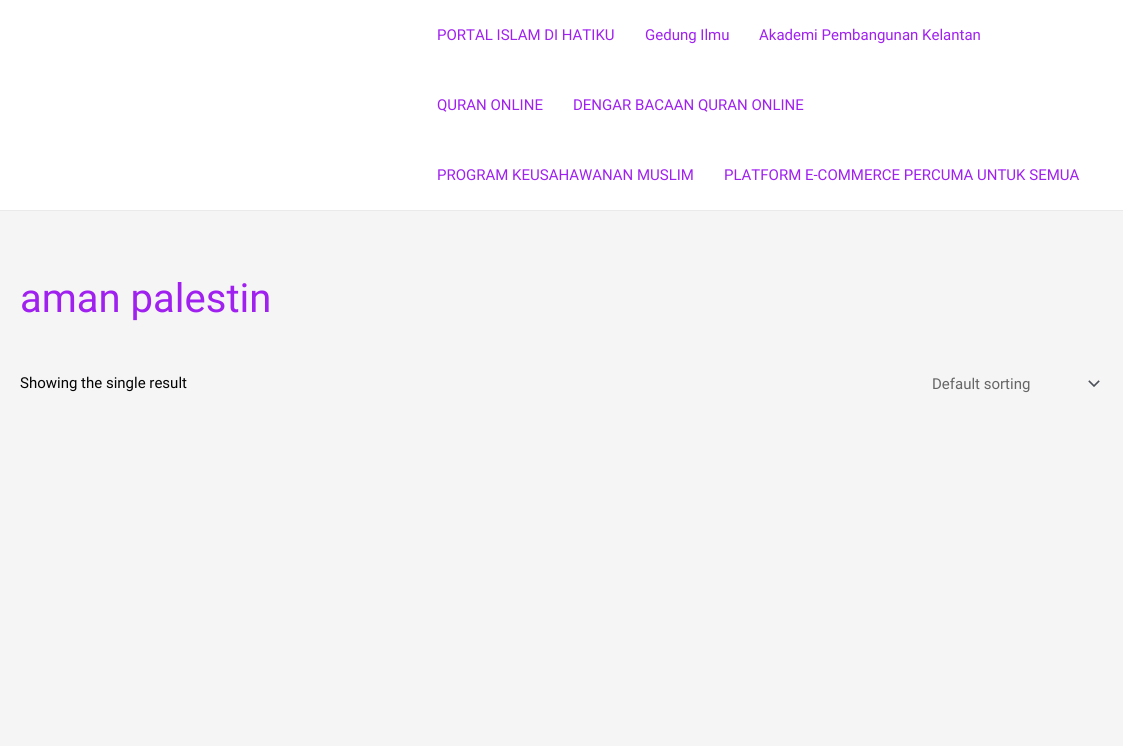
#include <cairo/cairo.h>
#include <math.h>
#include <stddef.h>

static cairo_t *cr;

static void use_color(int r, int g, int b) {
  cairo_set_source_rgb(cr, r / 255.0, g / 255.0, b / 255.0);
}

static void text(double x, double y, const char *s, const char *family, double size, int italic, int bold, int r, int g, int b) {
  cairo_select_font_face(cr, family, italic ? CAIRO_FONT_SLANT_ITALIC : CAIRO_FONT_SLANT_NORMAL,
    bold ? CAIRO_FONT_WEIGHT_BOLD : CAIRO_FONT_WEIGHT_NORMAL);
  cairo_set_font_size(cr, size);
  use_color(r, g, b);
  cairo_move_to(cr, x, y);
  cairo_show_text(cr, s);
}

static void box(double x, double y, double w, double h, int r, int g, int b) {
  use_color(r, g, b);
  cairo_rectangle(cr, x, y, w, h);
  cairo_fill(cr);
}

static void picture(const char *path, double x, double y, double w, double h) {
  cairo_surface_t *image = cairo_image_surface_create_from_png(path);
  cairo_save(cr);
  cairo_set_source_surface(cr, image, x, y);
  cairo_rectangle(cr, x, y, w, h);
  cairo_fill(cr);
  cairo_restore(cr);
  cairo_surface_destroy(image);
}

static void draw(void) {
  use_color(245, 245, 245);
  cairo_paint(cr);
  box(0, 0, 1123, 210, 255, 255, 255);
  box(0, 210, 1123, 1, 234, 234, 234);
  picture("img_01.png", 1088, 380, 12, 7);
  text(437, 40, "PORTAL ISLAM DI HATIKU", "Roboto", 15, 0, 0, 160, 32, 240);
  text(645, 40, "Gedung Ilmu", "Roboto", 15, 0, 0, 160, 32, 240);
  text(759, 40, "Akademi Pembangunan Kelantan", "Roboto", 15, 0, 0, 160, 32, 240);
  text(437, 110, "QURAN ONLINE", "Roboto", 15, 0, 0, 160, 32, 240);
  text(573, 110, "DENGAR BACAAN QURAN ONLINE", "Roboto", 15, 0, 0, 160, 32, 240);
  text(437, 180, "PROGRAM KEUSAHAWANAN MUSLIM", "Roboto", 15, 0, 0, 160, 32, 240);
  text(724, 180, "PLATFORM E-COMMERCE PERCUMA UNTUK SEMUA", "Roboto", 15, 0, 0, 160, 32, 240);
  text(20, 312, "aman palestin", "Roboto", 40, 0, 0, 160, 32, 240);
  text(20, 388, "Showing the single result", "Roboto", 15, 0, 0, 4, 4, 4);
  text(932, 389, "Default sorting", "Roboto", 15, 0, 0, 102, 102, 102);
}

int main(void) {
  cairo_surface_t *surface = cairo_image_surface_create(CAIRO_FORMAT_RGB24, 1123, 746);
  cr = cairo_create(surface);
  cairo_font_options_t *options = cairo_font_options_create();
  cairo_font_options_set_hint_metrics(options, CAIRO_HINT_METRICS_OFF);
  cairo_font_options_set_hint_style(options, CAIRO_HINT_STYLE_NONE);
  cairo_set_font_options(cr, options);
  cairo_set_miter_limit(cr, 4);
  draw();
  cairo_surface_write_to_png(surface, "out.png");
  cairo_font_options_destroy(options);
  cairo_destroy(cr);
  cairo_surface_destroy(surface);
  return 0;
}
